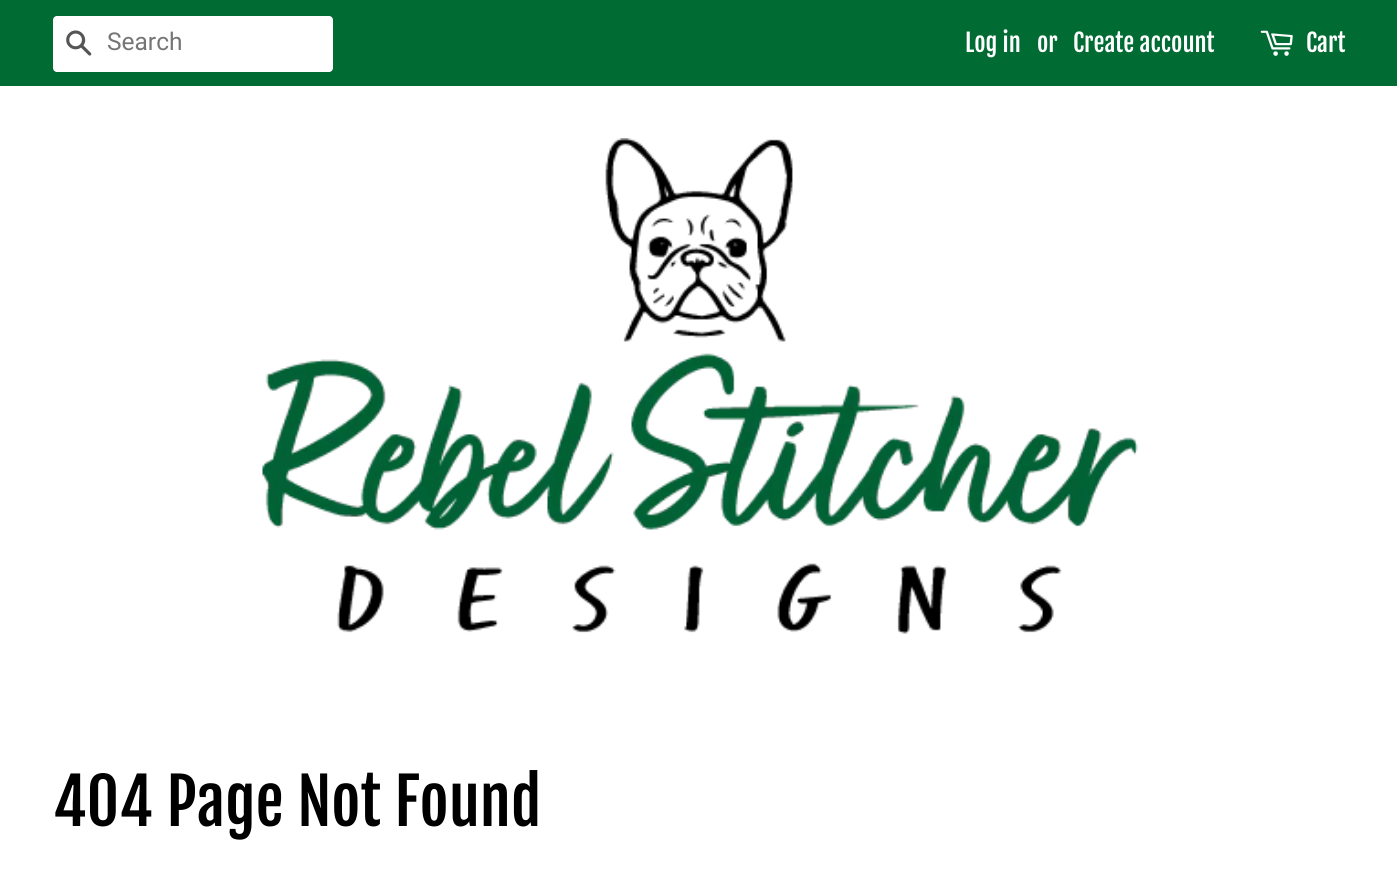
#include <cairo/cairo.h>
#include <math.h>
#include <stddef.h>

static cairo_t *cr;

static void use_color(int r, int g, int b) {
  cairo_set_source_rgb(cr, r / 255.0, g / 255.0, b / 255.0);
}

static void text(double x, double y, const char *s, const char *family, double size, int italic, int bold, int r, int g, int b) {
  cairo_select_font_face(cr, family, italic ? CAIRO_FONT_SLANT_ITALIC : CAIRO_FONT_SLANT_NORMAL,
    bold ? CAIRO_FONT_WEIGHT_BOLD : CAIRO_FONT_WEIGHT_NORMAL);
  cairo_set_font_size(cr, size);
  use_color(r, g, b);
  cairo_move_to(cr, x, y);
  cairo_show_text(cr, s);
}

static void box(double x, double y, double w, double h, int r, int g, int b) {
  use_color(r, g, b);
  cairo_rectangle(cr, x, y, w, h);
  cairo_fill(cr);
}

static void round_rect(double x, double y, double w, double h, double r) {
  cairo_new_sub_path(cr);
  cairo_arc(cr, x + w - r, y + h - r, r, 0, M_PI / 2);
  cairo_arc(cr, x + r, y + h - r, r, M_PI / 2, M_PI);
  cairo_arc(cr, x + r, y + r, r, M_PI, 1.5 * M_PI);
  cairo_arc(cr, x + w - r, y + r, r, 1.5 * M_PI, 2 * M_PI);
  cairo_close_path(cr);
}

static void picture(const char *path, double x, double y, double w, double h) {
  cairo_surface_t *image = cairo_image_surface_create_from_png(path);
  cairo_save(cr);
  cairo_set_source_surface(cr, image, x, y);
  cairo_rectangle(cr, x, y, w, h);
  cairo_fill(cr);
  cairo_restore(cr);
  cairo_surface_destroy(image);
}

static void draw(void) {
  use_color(255, 255, 255);
  cairo_paint(cr);
  box(0, 0, 1397, 86, 0, 107, 51);
  use_color(255, 255, 255);
  round_rect(53, 16, 280, 56, 4);
  cairo_fill(cr);
  picture("img_01.png", 66, 30, 26, 26);
  picture("img_02.png", 1260, 30, 33, 26);
  picture("img_03.png", 262, 138, 876, 496);
  text(107, 50, "Search", "Roboto", 24.5, 0, 0, 117, 117, 117);
  text(965, 52, "Log in", "Fjalla One", 24.5, 0, 0, 255, 255, 255);
  text(1037, 52, "or", "Fjalla One", 24.5, 0, 0, 255, 255, 255);
  text(1073, 52, "Create account", "Fjalla One", 24.5, 0, 0, 255, 255, 255);
  text(1306, 52, "Cart", "Fjalla One", 24.5, 0, 0, 255, 255, 255);
  text(53, 826, "404 Page Not Found", "Fjalla One", 63, 0, 0, 0, 0, 0);
}

int main(void) {
  cairo_surface_t *surface = cairo_image_surface_create(CAIRO_FORMAT_RGB24, 1397, 892);
  cr = cairo_create(surface);
  cairo_font_options_t *options = cairo_font_options_create();
  cairo_font_options_set_hint_metrics(options, CAIRO_HINT_METRICS_OFF);
  cairo_font_options_set_hint_style(options, CAIRO_HINT_STYLE_NONE);
  cairo_set_font_options(cr, options);
  cairo_set_miter_limit(cr, 4);
  draw();
  cairo_surface_write_to_png(surface, "out.png");
  cairo_font_options_destroy(options);
  cairo_destroy(cr);
  cairo_surface_destroy(surface);
  return 0;
}
